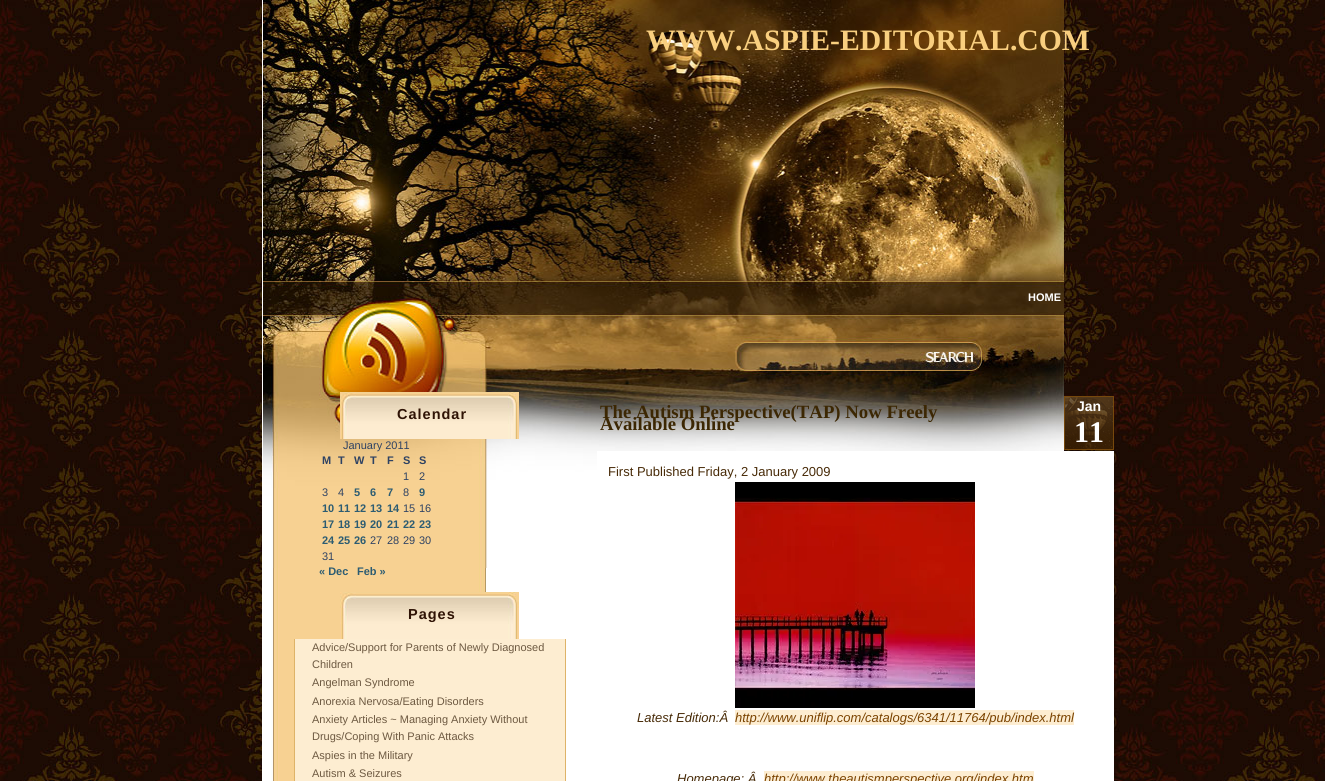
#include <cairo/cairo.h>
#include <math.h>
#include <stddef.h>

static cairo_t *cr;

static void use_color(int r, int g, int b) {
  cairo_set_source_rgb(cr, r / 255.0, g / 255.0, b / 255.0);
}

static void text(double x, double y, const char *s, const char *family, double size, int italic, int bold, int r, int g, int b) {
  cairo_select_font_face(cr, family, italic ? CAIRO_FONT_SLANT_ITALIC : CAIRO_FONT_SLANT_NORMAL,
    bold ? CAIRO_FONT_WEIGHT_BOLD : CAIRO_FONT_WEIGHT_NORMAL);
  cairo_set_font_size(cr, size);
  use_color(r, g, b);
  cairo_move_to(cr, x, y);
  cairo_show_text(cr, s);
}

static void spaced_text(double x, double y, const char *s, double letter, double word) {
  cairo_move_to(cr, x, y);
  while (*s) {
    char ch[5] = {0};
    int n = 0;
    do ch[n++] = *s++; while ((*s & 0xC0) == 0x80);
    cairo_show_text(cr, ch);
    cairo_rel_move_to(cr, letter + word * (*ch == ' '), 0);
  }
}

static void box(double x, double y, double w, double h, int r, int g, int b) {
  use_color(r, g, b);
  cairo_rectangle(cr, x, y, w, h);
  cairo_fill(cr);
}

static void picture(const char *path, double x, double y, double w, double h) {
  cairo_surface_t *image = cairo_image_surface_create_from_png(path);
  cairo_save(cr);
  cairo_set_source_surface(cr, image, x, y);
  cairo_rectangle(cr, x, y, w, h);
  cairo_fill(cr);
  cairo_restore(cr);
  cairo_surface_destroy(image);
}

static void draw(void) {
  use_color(255, 255, 255);
  cairo_paint(cr);
  picture("img_01.png", 0, 0, 1325, 781);
  box(262, 0, 335, 781, 255, 255, 255);
  picture("img_02.png", 271, 568, 215, 213);
  picture("img_03.png", 263, 0, 801, 568);
  picture("img_04.png", 340, 392, 179, 47);
  picture("img_04.png", 340, 592, 179, 47);
  box(295, 639, 270, 142, 253, 237, 209);
  box(565, 639, 1, 142, 222, 179, 104);
  box(294, 639, 1, 142, 222, 179, 104);
  picture("img_05.png", 1064, 396, 50, 54);
  box(597, 451, 517, 330, 255, 255, 255);
  picture("img_06.png", 735, 482, 240, 226);
  box(735, 710, 339, 15, 253, 237, 209);
  box(764, 771, 270, 10, 253, 237, 209);
  cairo_select_font_face(cr, "Liberation Sans", CAIRO_FONT_SLANT_NORMAL, CAIRO_FONT_WEIGHT_BOLD);
  cairo_set_font_size(cr, 14.5);
  use_color(47, 19, 5);
  spaced_text(397, 419, "Calendar", 1, 0);
  text(343, 449, "January 2011", "Liberation Sans", 11, 0, 0, 46, 66, 99);
  text(322, 464, "M", "Liberation Sans", 11, 0, 1, 46, 66, 99);
  text(338, 464, "T", "Liberation Sans", 11, 0, 1, 46, 66, 99);
  text(354, 464, "W", "Liberation Sans", 11, 0, 1, 46, 66, 99);
  text(370, 464, "T", "Liberation Sans", 11, 0, 1, 46, 66, 99);
  text(387, 464, "F", "Liberation Sans", 11, 0, 1, 46, 66, 99);
  text(403, 464, "S", "Liberation Sans", 11, 0, 1, 46, 66, 99);
  text(419, 464, "S", "Liberation Sans", 11, 0, 1, 46, 66, 99);
  text(403, 480, "1", "Liberation Sans", 11, 0, 0, 46, 66, 99);
  text(419, 480, "2", "Liberation Sans", 11, 0, 0, 46, 66, 99);
  text(322, 496, "3", "Liberation Sans", 11, 0, 0, 46, 66, 99);
  text(338, 496, "4", "Liberation Sans", 11, 0, 0, 46, 66, 99);
  text(354, 496, "5", "Liberation Sans", 11, 0, 1, 44, 92, 114);
  text(370, 496, "6", "Liberation Sans", 11, 0, 1, 44, 92, 114);
  text(387, 496, "7", "Liberation Sans", 11, 0, 1, 44, 92, 114);
  text(403, 496, "8", "Liberation Sans", 11, 0, 0, 46, 66, 99);
  text(419, 496, "9", "Liberation Sans", 11, 0, 1, 44, 92, 114);
  text(322, 512, "10", "Liberation Sans", 11, 0, 1, 44, 92, 114);
  text(338, 512, "11", "Liberation Sans", 11, 0, 1, 44, 92, 114);
  text(354, 512, "12", "Liberation Sans", 11, 0, 1, 44, 92, 114);
  text(370, 512, "13", "Liberation Sans", 11, 0, 1, 44, 92, 114);
  text(387, 512, "14", "Liberation Sans", 11, 0, 1, 44, 92, 114);
  text(403, 512, "15", "Liberation Sans", 11, 0, 0, 46, 66, 99);
  text(419, 512, "16", "Liberation Sans", 11, 0, 0, 46, 66, 99);
  text(322, 528, "17", "Liberation Sans", 11, 0, 1, 44, 92, 114);
  text(338, 528, "18", "Liberation Sans", 11, 0, 1, 44, 92, 114);
  text(354, 528, "19", "Liberation Sans", 11, 0, 1, 44, 92, 114);
  text(370, 528, "20", "Liberation Sans", 11, 0, 1, 44, 92, 114);
  text(387, 528, "21", "Liberation Sans", 11, 0, 1, 44, 92, 114);
  text(403, 528, "22", "Liberation Sans", 11, 0, 1, 44, 92, 114);
  text(419, 528, "23", "Liberation Sans", 11, 0, 1, 44, 92, 114);
  text(322, 544, "24", "Liberation Sans", 11, 0, 1, 44, 92, 114);
  text(338, 544, "25", "Liberation Sans", 11, 0, 1, 44, 92, 114);
  text(354, 544, "26", "Liberation Sans", 11, 0, 1, 44, 92, 114);
  text(370, 544, "27", "Liberation Sans", 11, 0, 0, 46, 66, 99);
  text(387, 544, "28", "Liberation Sans", 11, 0, 0, 46, 66, 99);
  text(403, 544, "29", "Liberation Sans", 11, 0, 0, 46, 66, 99);
  text(419, 544, "30", "Liberation Sans", 11, 0, 0, 46, 66, 99);
  text(322, 560, "31", "Liberation Sans", 11, 0, 0, 46, 66, 99);
  text(319, 575, "« Dec", "Liberation Sans", 11, 0, 1, 44, 92, 114);
  text(357, 575, "Feb »", "Liberation Sans", 11, 0, 1, 44, 92, 114);
  cairo_set_font_size(cr, 14.5);
  use_color(47, 19, 5);
  spaced_text(408, 619, "Pages", 1, 0);
  text(312, 651, "Advice/Support for Parents of Newly Diagnosed", "Liberation Sans", 11, 0, 0, 109, 89, 65);
  text(312, 668, "Children", "Liberation Sans", 11, 0, 0, 109, 89, 65);
  text(312, 686, "Angelman Syndrome", "Liberation Sans", 11, 0, 0, 109, 89, 65);
  text(312, 705, "Anorexia Nervosa/Eating Disorders", "Liberation Sans", 11, 0, 0, 109, 89, 65);
  text(312, 723, "Anxiety Articles ~ Managing Anxiety Without", "Liberation Sans", 11, 0, 0, 109, 89, 65);
  text(312, 740, "Drugs/Coping With Panic Attacks", "Liberation Sans", 11, 0, 0, 109, 89, 65);
  text(312, 759, "Aspies in the Military", "Liberation Sans", 11, 0, 0, 109, 89, 65);
  text(312, 777, "Autism & Seizures", "Liberation Sans", 11, 0, 0, 109, 89, 65);
  text(646, 50, "WWW.ASPIE-EDITORIAL.COM", "Liberation Serif", 29.7, 0, 1, 249, 207, 127);
  text(1028, 301, "HOME", "Liberation Sans", 11, 0, 1, 255, 255, 255);
  text(600, 418, "The Autism Perspective(TAP) Now Freely", "Liberation Serif", 18.75, 0, 1, 60, 39, 3);
  text(600, 430, "Available Online", "Liberation Serif", 18.75, 0, 1, 60, 39, 3);
  text(1077, 411, "Jan", "Liberation Sans", 14, 0, 1, 255, 255, 255);
  text(1074, 442, "11", "Liberation Serif", 30, 0, 1, 255, 255, 255);
  text(608, 476, "First Published Friday, 2 January 2009", "Liberation Sans", 13, 0, 0, 72, 43, 8);
  text(637, 722, "Latest Edition:Â", "Liberation Sans", 13, 1, 0, 72, 43, 8);
  text(735, 722, "http://www.uniflip.com/catalogs/6341/11764/pub/index.html", "Liberation Sans", 13, 1, 0, 123, 67, 0);
  text(677, 783, "Homepage: Â", "Liberation Sans", 13, 1, 0, 72, 43, 8);
  text(764, 783, "http://www.theautismperspective.org/index.htm", "Liberation Sans", 13, 1, 0, 123, 67, 0);
}

int main(void) {
  cairo_surface_t *surface = cairo_image_surface_create(CAIRO_FORMAT_RGB24, 1325, 781);
  cr = cairo_create(surface);
  cairo_font_options_t *options = cairo_font_options_create();
  cairo_font_options_set_hint_metrics(options, CAIRO_HINT_METRICS_OFF);
  cairo_font_options_set_hint_style(options, CAIRO_HINT_STYLE_NONE);
  cairo_set_font_options(cr, options);
  cairo_set_miter_limit(cr, 4);
  draw();
  cairo_surface_write_to_png(surface, "out.png");
  cairo_font_options_destroy(options);
  cairo_destroy(cr);
  cairo_surface_destroy(surface);
  return 0;
}
